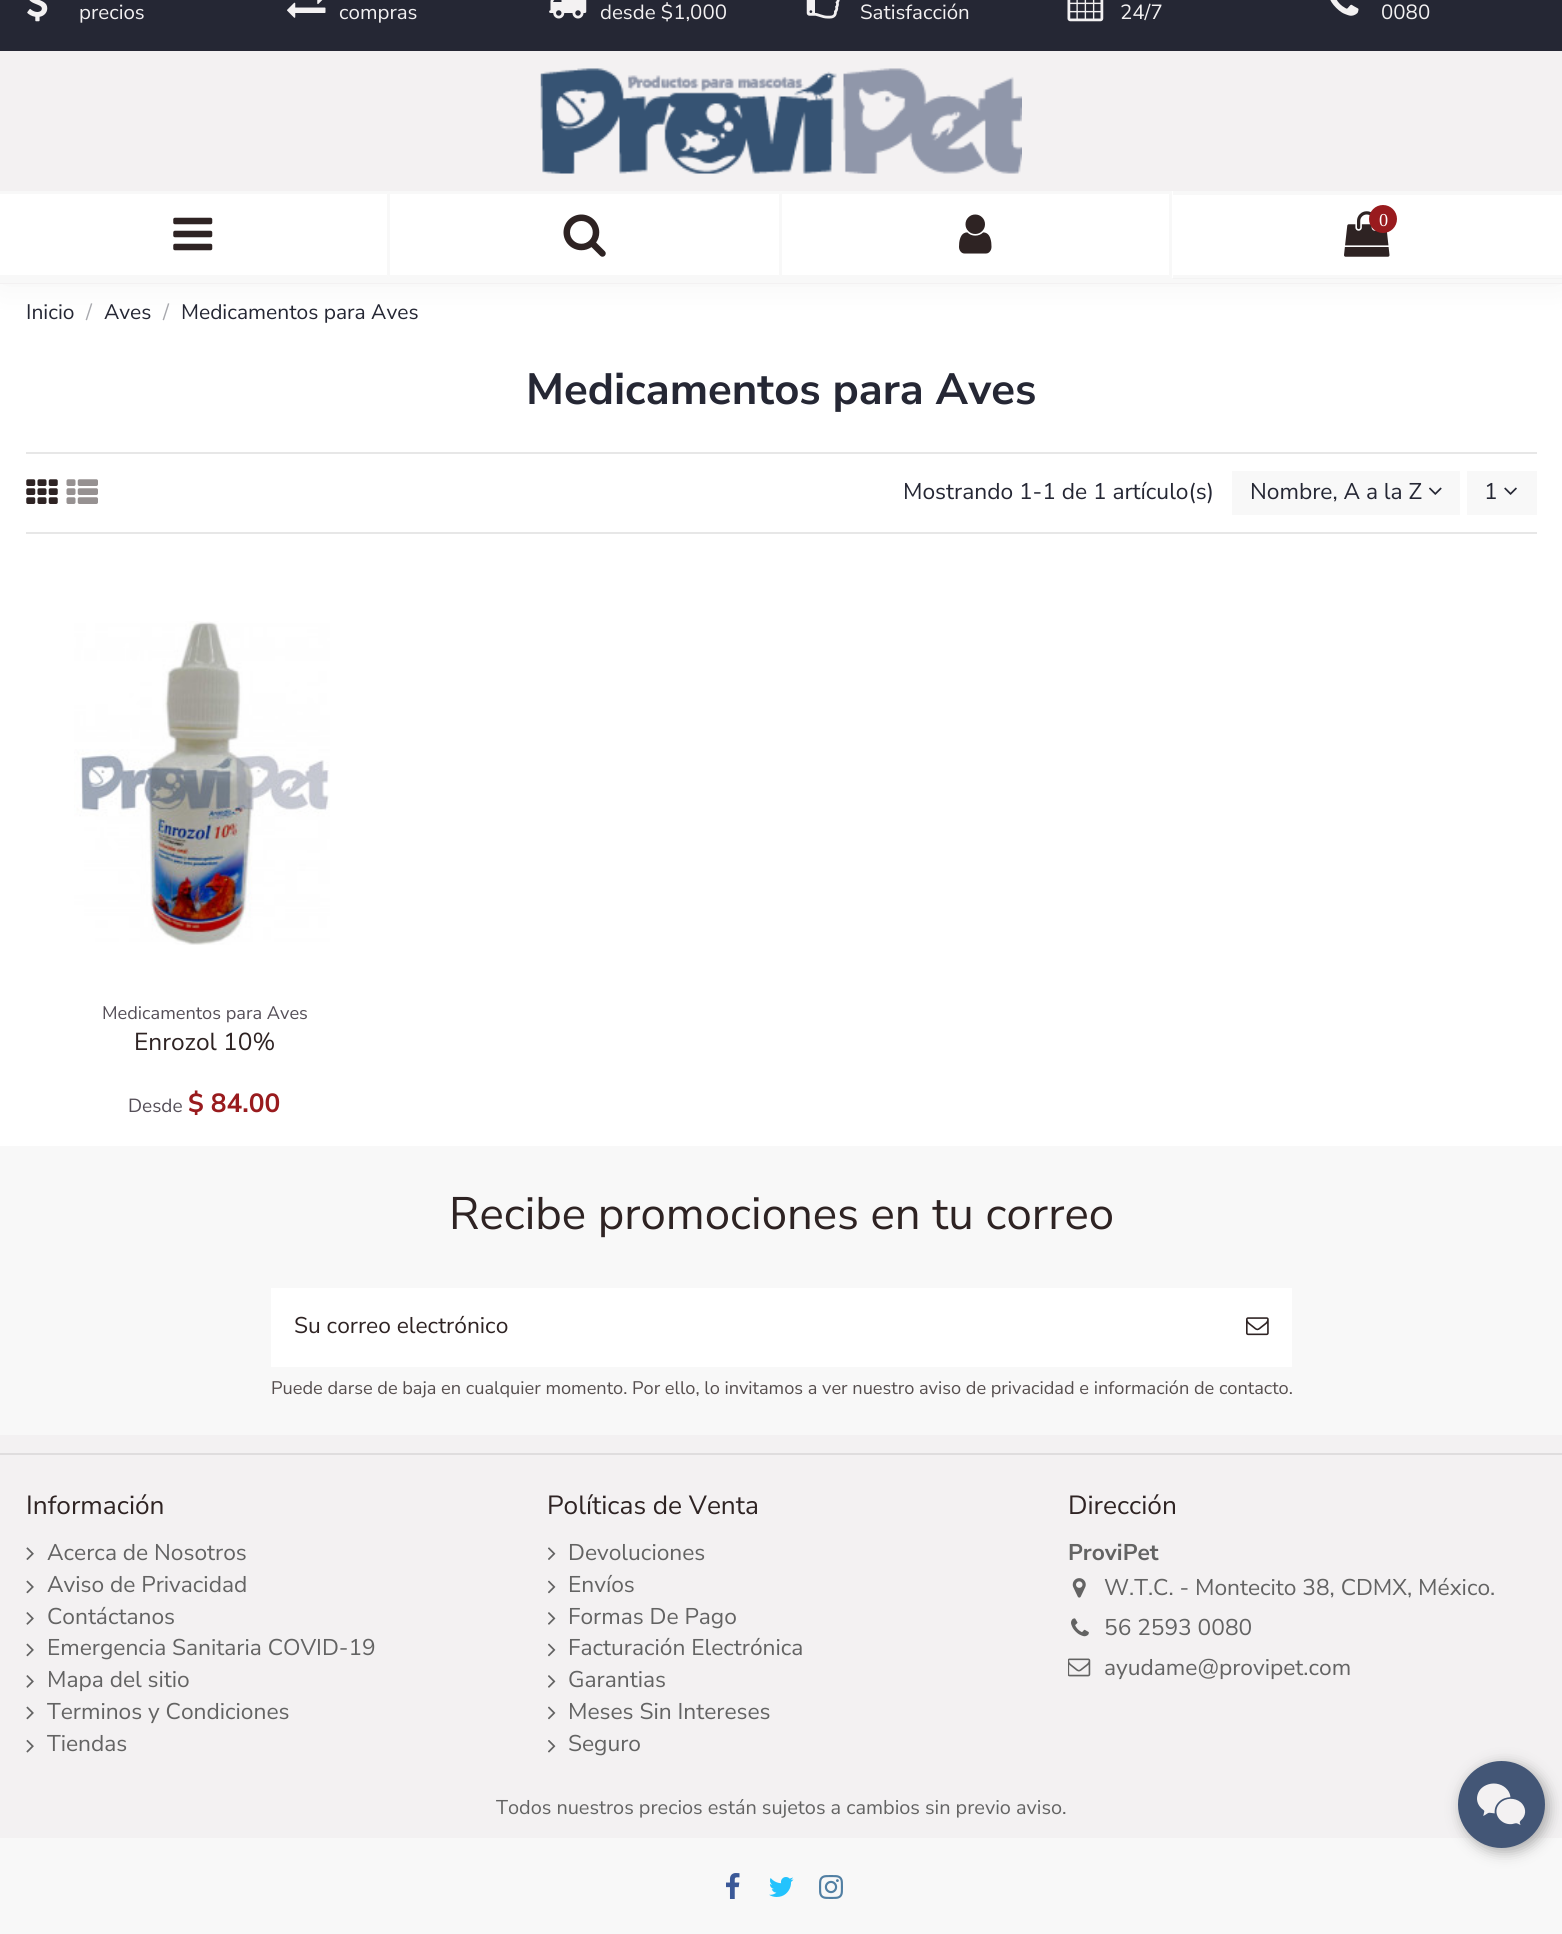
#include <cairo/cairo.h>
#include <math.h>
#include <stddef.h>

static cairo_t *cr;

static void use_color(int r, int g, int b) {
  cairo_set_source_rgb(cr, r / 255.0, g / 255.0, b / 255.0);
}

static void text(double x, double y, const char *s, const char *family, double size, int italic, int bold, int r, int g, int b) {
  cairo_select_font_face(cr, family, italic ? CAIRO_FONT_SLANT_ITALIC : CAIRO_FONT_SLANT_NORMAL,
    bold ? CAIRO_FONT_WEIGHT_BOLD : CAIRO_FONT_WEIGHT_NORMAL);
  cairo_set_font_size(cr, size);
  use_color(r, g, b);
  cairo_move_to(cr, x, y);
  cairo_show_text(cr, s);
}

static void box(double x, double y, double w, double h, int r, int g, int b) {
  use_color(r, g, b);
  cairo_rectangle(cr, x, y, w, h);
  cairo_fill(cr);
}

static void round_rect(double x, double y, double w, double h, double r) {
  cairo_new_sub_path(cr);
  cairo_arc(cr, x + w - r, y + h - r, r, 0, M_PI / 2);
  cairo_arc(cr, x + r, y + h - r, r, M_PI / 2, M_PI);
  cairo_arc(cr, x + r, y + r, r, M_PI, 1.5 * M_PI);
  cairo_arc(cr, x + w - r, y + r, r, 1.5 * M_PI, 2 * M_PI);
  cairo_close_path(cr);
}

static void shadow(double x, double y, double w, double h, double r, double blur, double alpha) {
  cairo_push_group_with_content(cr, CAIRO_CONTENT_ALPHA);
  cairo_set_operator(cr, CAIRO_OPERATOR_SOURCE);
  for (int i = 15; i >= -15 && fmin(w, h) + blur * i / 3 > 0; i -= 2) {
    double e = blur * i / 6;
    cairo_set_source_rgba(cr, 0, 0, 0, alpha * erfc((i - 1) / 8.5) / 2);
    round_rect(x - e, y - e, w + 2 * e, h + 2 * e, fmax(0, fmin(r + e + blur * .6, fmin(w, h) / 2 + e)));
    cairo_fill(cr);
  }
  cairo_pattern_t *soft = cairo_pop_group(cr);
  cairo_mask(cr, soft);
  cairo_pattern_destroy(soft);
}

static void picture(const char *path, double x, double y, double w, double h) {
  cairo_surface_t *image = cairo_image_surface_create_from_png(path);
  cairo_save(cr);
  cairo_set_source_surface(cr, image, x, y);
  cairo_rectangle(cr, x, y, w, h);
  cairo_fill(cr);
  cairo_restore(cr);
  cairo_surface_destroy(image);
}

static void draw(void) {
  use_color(255, 255, 255);
  cairo_paint(cr);
  use_color(0, 0, 0);
  shadow(0, -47, 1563, 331, 0, 17.5, 0.05);
  box(0, 51, 1562, 233, 243, 241, 242);
  box(0, 278, 1562, 5, 248, 248, 248);
  box(1173, 278, 389, 1, 243, 243, 243);
  box(0, 0, 1562, 51, 37, 39, 52);
  picture("img_01.png", 27, 0, 21, 22);
  picture("img_02.png", 287, 0, 39, 18);
  picture("img_03.png", 549, 0, 38, 19);
  picture("img_04.png", 806, 0, 34, 19);
  picture("img_05.png", 1067, 0, 37, 22);
  picture("img_06.png", 1330, 0, 29, 16);
  picture("img_07.png", 540, 68, 482, 106);
  box(0, 191, 1562, 87, 255, 255, 255);
  box(1173, 275, 389, 3, 248, 248, 248);
  cairo_new_path(cr);
  cairo_move_to(cr, 0, 191);
  cairo_line_to(cr, 390, 191);
  cairo_line_to(cr, 387, 194);
  cairo_line_to(cr, 0, 194);
  cairo_close_path(cr);
  cairo_fill(cr);
  cairo_set_source_rgba(cr, 0.91, 0.91, 0.91, 0.29);
  cairo_new_path(cr);
  cairo_move_to(cr, 390, 191);
  cairo_line_to(cr, 390, 278);
  cairo_line_to(cr, 387, 275);
  cairo_line_to(cr, 387, 194);
  cairo_close_path(cr);
  cairo_fill(cr);
  cairo_new_path(cr);
  cairo_move_to(cr, 390, 278);
  cairo_line_to(cr, 0, 278);
  cairo_line_to(cr, 0, 275);
  cairo_line_to(cr, 387, 275);
  cairo_close_path(cr);
  cairo_fill(cr);
  picture("img_08.png", 173, 217, 40, 34);
  use_color(248, 248, 248);
  cairo_new_path(cr);
  cairo_move_to(cr, 390, 191);
  cairo_line_to(cr, 782, 191);
  cairo_line_to(cr, 779, 194);
  cairo_line_to(cr, 390, 194);
  cairo_close_path(cr);
  cairo_fill(cr);
  cairo_set_source_rgba(cr, 0.91, 0.91, 0.91, 0.29);
  cairo_new_path(cr);
  cairo_move_to(cr, 782, 191);
  cairo_line_to(cr, 782, 278);
  cairo_line_to(cr, 779, 275);
  cairo_line_to(cr, 779, 194);
  cairo_close_path(cr);
  cairo_fill(cr);
  cairo_new_path(cr);
  cairo_move_to(cr, 782, 278);
  cairo_line_to(cr, 390, 278);
  cairo_line_to(cr, 390, 275);
  cairo_line_to(cr, 779, 275);
  cairo_close_path(cr);
  cairo_fill(cr);
  picture("img_09.png", 563, 214, 43, 43);
  use_color(248, 248, 248);
  cairo_new_path(cr);
  cairo_move_to(cr, 782, 191);
  cairo_line_to(cr, 1172, 191);
  cairo_line_to(cr, 1169, 194);
  cairo_line_to(cr, 782, 194);
  cairo_close_path(cr);
  cairo_fill(cr);
  cairo_set_source_rgba(cr, 0.91, 0.91, 0.91, 0.29);
  cairo_new_path(cr);
  cairo_move_to(cr, 1172, 191);
  cairo_line_to(cr, 1172, 278);
  cairo_line_to(cr, 1169, 275);
  cairo_line_to(cr, 1169, 194);
  cairo_close_path(cr);
  cairo_fill(cr);
  cairo_new_path(cr);
  cairo_move_to(cr, 1172, 278);
  cairo_line_to(cr, 782, 278);
  cairo_line_to(cr, 782, 275);
  cairo_line_to(cr, 1169, 275);
  cairo_close_path(cr);
  cairo_fill(cr);
  picture("img_10.png", 959, 214, 33, 40);
  box(1173, 191, 389, 4, 248, 248, 248);
  picture("img_11.png", 1344, 211, 46, 46);
  use_color(153, 27, 30);
  cairo_arc(cr, 1383, 219, 14, 0, 2 * M_PI);
  cairo_fill(cr);
  box(26, 452, 1511, 2, 231, 231, 231);
  box(26, 532, 1511, 2, 231, 231, 231);
  picture("img_12.png", 26, 479, 32, 25);
  picture("img_13.png", 66, 479, 32, 25);
  box(1232, 471, 228, 44, 248, 248, 248);
  picture("img_14.png", 1429, 487, 13, 8);
  box(1467, 471, 70, 44, 248, 248, 248);
  picture("img_15.png", 1504, 487, 13, 8);
  picture("img_16.png", 74, 621, 256, 324);
  box(0, 1435, 1562, 403, 243, 241, 242);
  box(0, 1146, 1562, 289, 248, 248, 248);
  box(271, 1288, 1021, 79, 255, 255, 255);
  picture("img_17.png", 1246, 1317, 23, 19);
  box(0, 1453, 1562, 2, 223, 221, 222);
  picture("img_18.png", 26, 1547, 8, 13);
  picture("img_19.png", 26, 1580, 8, 14);
  picture("img_20.png", 26, 1612, 8, 13);
  picture("img_19.png", 26, 1643, 8, 14);
  picture("img_20.png", 26, 1675, 8, 13);
  picture("img_19.png", 26, 1706, 8, 14);
  picture("img_21.png", 26, 1739, 8, 14);
  picture("img_22.png", 548, 1547, 8, 13);
  picture("img_23.png", 548, 1580, 8, 14);
  picture("img_24.png", 548, 1612, 8, 13);
  picture("img_23.png", 548, 1643, 8, 14);
  picture("img_24.png", 548, 1675, 8, 13);
  picture("img_23.png", 548, 1706, 8, 14);
  picture("img_25.png", 548, 1740, 8, 13);
  picture("img_26.png", 1072, 1578, 14, 20);
  picture("img_27.png", 1071, 1618, 18, 19);
  picture("img_28.png", 1068, 1658, 23, 19);
  box(0, 1838, 1562, 96, 248, 248, 248);
  picture("img_29.png", 726, 1873, 14, 26);
  picture("img_30.png", 769, 1877, 25, 20);
  picture("img_31.png", 819, 1875, 24, 24);
  use_color(170, 170, 170);
  shadow(1461, 1764, 88, 88, 44, 7, 1);
  use_color(67, 86, 118);
  cairo_arc(cr, 1501.5, 1804.5, 43.5, 0, 2 * M_PI);
  cairo_fill(cr);
  picture("img_32.png", 1477, 1783, 49, 42);
  text(79, 19, "precios", "Nunito Sans", 20.5, 0, 0, 243, 241, 242);
  text(339, 19, "compras", "Nunito Sans", 20.5, 0, 0, 243, 241, 242);
  text(600, 19, "desde $1,000", "Nunito Sans", 20.5, 0, 0, 243, 241, 242);
  text(860, 19, "Satisfacción", "Nunito Sans", 20.5, 0, 0, 243, 241, 242);
  text(1120, 19, "24/7", "Nunito Sans", 20.5, 0, 0, 243, 241, 242);
  text(1381, 19, "0080", "Nunito Sans", 20.5, 0, 0, 243, 241, 242);
  text(1379, 226, "0", "Liberation Serif", 18.2, 0, 0, 255, 255, 255);
  text(26, 319, "Inicio", "Nunito Sans", 21, 0, 0, 37, 39, 52);
  text(86, 319, "/", "Nunito Sans", 21, 0, 0, 168, 169, 174);
  text(104, 319, "Aves", "Nunito Sans", 21, 0, 0, 37, 39, 52);
  text(163, 319, "/", "Nunito Sans", 21, 0, 0, 168, 169, 174);
  text(181, 319, "Medicamentos para Aves", "Nunito Sans", 21, 0, 0, 37, 39, 52);
  text(526, 404, "Medicamentos para Aves", "Nunito Sans", 43.75, 0, 1, 37, 39, 52);
  text(903, 499, "Mostrando 1-1 de 1 artículo(s)", "Nunito Sans", 22.75, 0, 0, 37, 39, 52);
  text(1250, 499, "Nombre, A a la Z", "Nunito Sans", 22.75, 0, 0, 37, 39, 52);
  text(1484, 499, "1", "Nunito Sans", 22.75, 0, 0, 37, 39, 52);
  text(102, 1019, "Medicamentos para Aves", "Nunito Sans", 18.2, 0, 0, 85, 79, 88);
  text(134, 1050, "Enrozol 10%", "Nunito Sans", 24.5, 0, 0, 46, 35, 35);
  text(128, 1112, "Desde", "Nunito Sans", 19, 0, 0, 85, 79, 88);
  text(188, 1112, "$ 84.00", "Nunito Sans", 26.25, 0, 1, 153, 27, 30);
  text(449, 1229, "Recibe promociones en tu correo", "Nunito Sans", 45.5, 0, 0, 46, 35, 35);
  text(294, 1333, "Su correo electrónico", "Nunito Sans", 22.75, 0, 0, 46, 35, 35);
  text(271, 1394, "Puede darse de baja en cualquier momento. Por ello, lo invitamos a ver nuestro aviso de privacidad e información de contacto.", "Nunito Sans", 18.2, 0, 0, 86, 78, 78);
  text(26, 1514, "Información", "Nunito Sans", 26.25, 0, 0, 46, 35, 35);
  text(47, 1560, "Acerca de Nosotros", "Nunito Sans", 22.75, 0, 0, 99, 99, 99);
  text(47, 1592, "Aviso de Privacidad", "Nunito Sans", 22.75, 0, 0, 99, 99, 99);
  text(47, 1624, "Contáctanos", "Nunito Sans", 22.75, 0, 0, 99, 99, 99);
  text(47, 1655, "Emergencia Sanitaria COVID-19", "Nunito Sans", 22.75, 0, 0, 99, 99, 99);
  text(47, 1687, "Mapa del sitio", "Nunito Sans", 22.75, 0, 0, 99, 99, 99);
  text(47, 1719, "Terminos y Condiciones", "Nunito Sans", 22.75, 0, 0, 99, 99, 99);
  text(47, 1751, "Tiendas", "Nunito Sans", 22.75, 0, 0, 99, 99, 99);
  text(547, 1514, "Políticas de Venta", "Nunito Sans", 26.25, 0, 0, 46, 35, 35);
  text(568, 1560, "Devoluciones", "Nunito Sans", 22.75, 0, 0, 99, 99, 99);
  text(568, 1592, "Envíos", "Nunito Sans", 22.75, 0, 0, 99, 99, 99);
  text(568, 1624, "Formas De Pago", "Nunito Sans", 22.75, 0, 0, 99, 99, 99);
  text(568, 1655, "Facturación Electrónica", "Nunito Sans", 22.75, 0, 0, 99, 99, 99);
  text(568, 1687, "Garantias", "Nunito Sans", 22.75, 0, 0, 99, 99, 99);
  text(568, 1719, "Meses Sin Intereses", "Nunito Sans", 22.75, 0, 0, 99, 99, 99);
  text(568, 1751, "Seguro", "Nunito Sans", 22.75, 0, 0, 99, 99, 99);
  text(1068, 1514, "Dirección", "Nunito Sans", 26.25, 0, 0, 46, 35, 35);
  text(1068, 1560, "ProviPet", "Nunito Sans", 22.75, 0, 1, 99, 99, 99);
  text(1104, 1595, "W.T.C. - Montecito 38, CDMX, México.", "Nunito Sans", 22.75, 0, 0, 99, 99, 99);
  text(1104, 1635, "56 2593 0080", "Nunito Sans", 22.75, 0, 0, 99, 99, 99);
  text(1104, 1675, "ayudame@provipet.com", "Nunito Sans", 22.75, 0, 0, 99, 99, 99);
  text(496, 1814, "Todos nuestros precios están sujetos a cambios sin previo aviso.", "Nunito Sans", 19.9, 0, 0, 99, 99, 99);
}

int main(void) {
  cairo_surface_t *surface = cairo_image_surface_create(CAIRO_FORMAT_RGB24, 1562, 1934);
  cr = cairo_create(surface);
  cairo_font_options_t *options = cairo_font_options_create();
  cairo_font_options_set_hint_metrics(options, CAIRO_HINT_METRICS_OFF);
  cairo_font_options_set_hint_style(options, CAIRO_HINT_STYLE_NONE);
  cairo_set_font_options(cr, options);
  cairo_set_miter_limit(cr, 4);
  draw();
  cairo_surface_write_to_png(surface, "out.png");
  cairo_font_options_destroy(options);
  cairo_destroy(cr);
  cairo_surface_destroy(surface);
  return 0;
}
